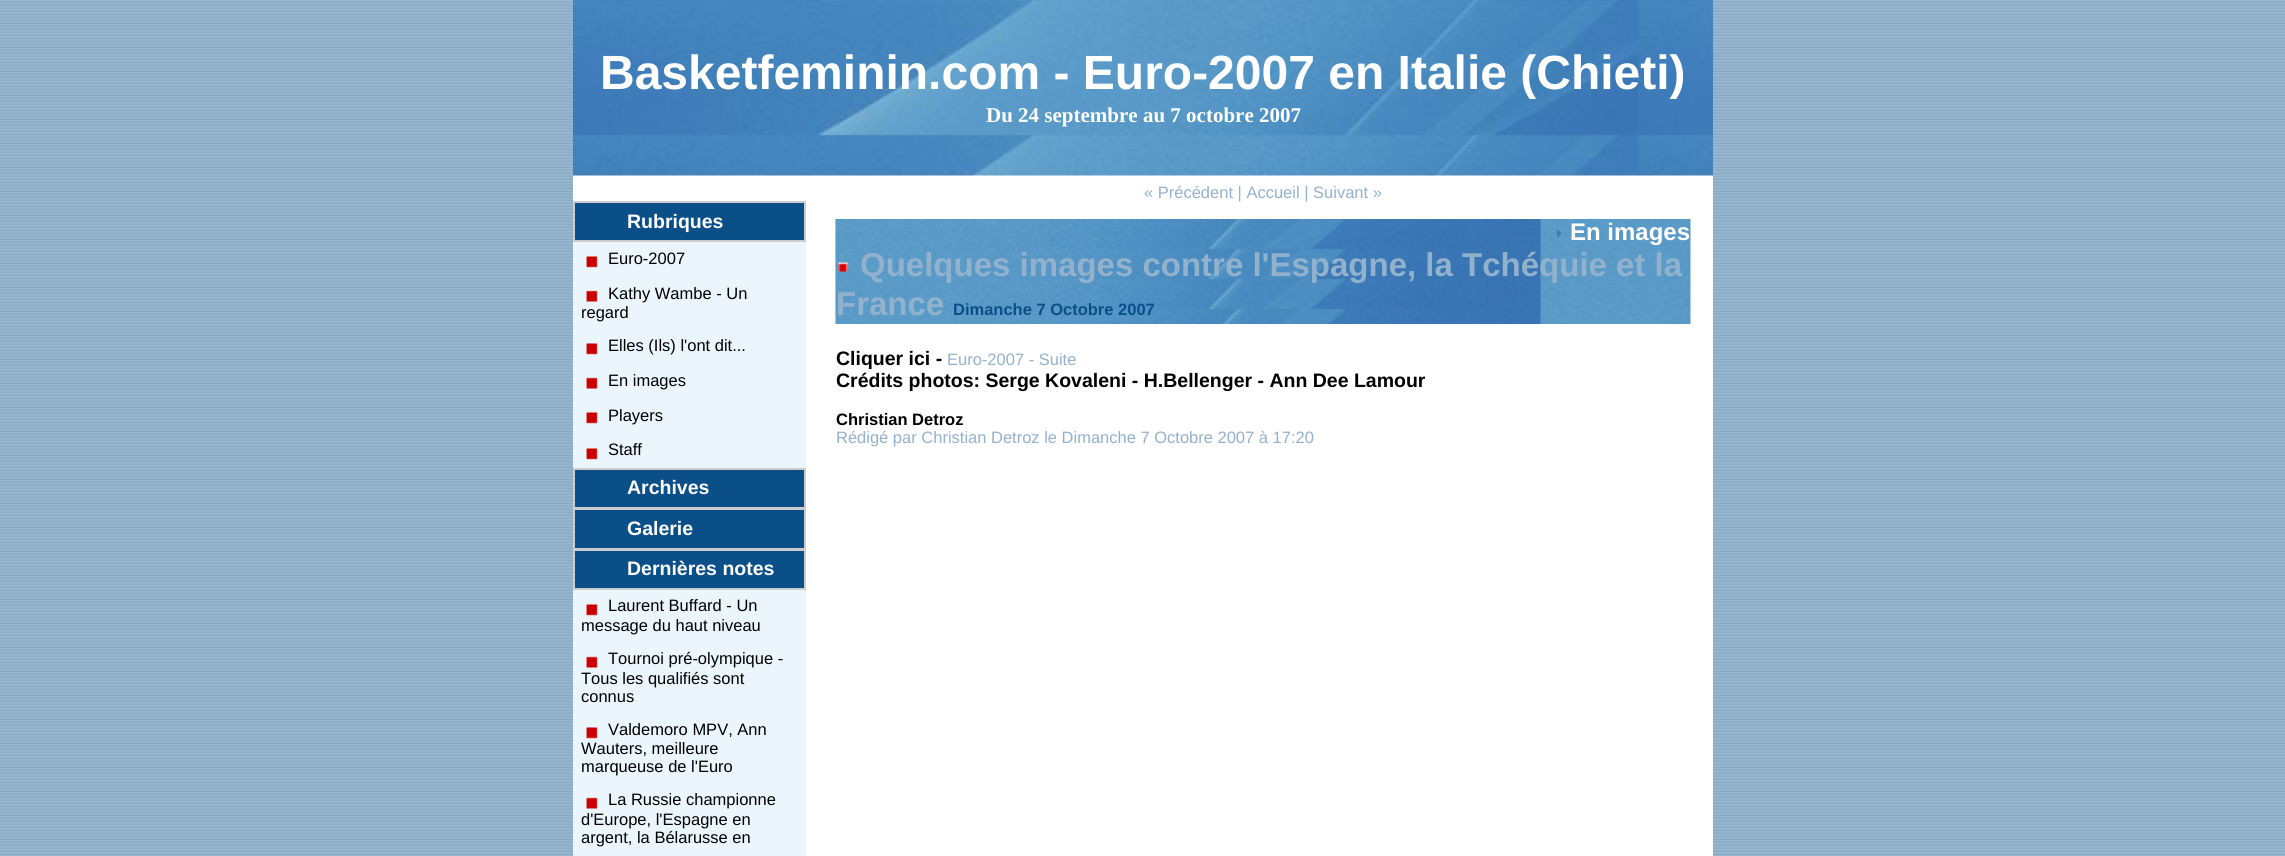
#include <cairo/cairo.h>
#include <math.h>
#include <stddef.h>

static cairo_t *cr;

static void use_color(int r, int g, int b) {
  cairo_set_source_rgb(cr, r / 255.0, g / 255.0, b / 255.0);
}

static void text(double x, double y, const char *s, const char *family, double size, int italic, int bold, int r, int g, int b) {
  cairo_select_font_face(cr, family, italic ? CAIRO_FONT_SLANT_ITALIC : CAIRO_FONT_SLANT_NORMAL,
    bold ? CAIRO_FONT_WEIGHT_BOLD : CAIRO_FONT_WEIGHT_NORMAL);
  cairo_set_font_size(cr, size);
  use_color(r, g, b);
  cairo_move_to(cr, x, y);
  cairo_show_text(cr, s);
}

static void box(double x, double y, double w, double h, int r, int g, int b) {
  use_color(r, g, b);
  cairo_rectangle(cr, x, y, w, h);
  cairo_fill(cr);
}

static void picture(const char *path, double x, double y, double w, double h) {
  cairo_surface_t *image = cairo_image_surface_create_from_png(path);
  cairo_save(cr);
  cairo_set_source_surface(cr, image, x, y);
  cairo_rectangle(cr, x, y, w, h);
  cairo_fill(cr);
  cairo_restore(cr);
  cairo_surface_destroy(image);
}

static void draw(void) {
  use_color(255, 255, 255);
  cairo_paint(cr);
  picture("img_01.png", 0, 0, 2285, 856);
  box(573, 175, 1140, 681, 255, 255, 255);
  picture("img_02.png", 573, 0, 1140, 176);
  box(573, 201, 233, 2, 204, 204, 204);
  box(575, 203, 229, 37, 11, 79, 137);
  box(804, 203, 2, 39, 204, 204, 204);
  box(573, 240, 233, 2, 204, 204, 204);
  box(573, 203, 2, 39, 204, 204, 204);
  box(573, 242, 233, 226, 235, 246, 252);
  picture("img_03.png", 586, 256, 12, 12);
  picture("img_04.png", 586, 290, 12, 12);
  picture("img_03.png", 586, 343, 12, 12);
  picture("img_04.png", 586, 377, 12, 12);
  picture("img_03.png", 586, 412, 12, 12);
  picture("img_03.png", 586, 448, 12, 12);
  box(573, 468, 233, 2, 204, 204, 204);
  box(575, 470, 229, 37, 11, 79, 137);
  box(804, 470, 2, 39, 204, 204, 204);
  box(573, 507, 233, 2, 204, 204, 204);
  box(573, 470, 2, 39, 204, 204, 204);
  box(573, 509, 233, 1, 204, 204, 204);
  box(575, 510, 229, 38, 11, 79, 137);
  box(804, 510, 2, 39, 204, 204, 204);
  box(573, 548, 233, 3, 204, 204, 204);
  box(573, 510, 2, 39, 204, 204, 204);
  box(575, 551, 229, 37, 11, 79, 137);
  box(804, 551, 2, 39, 204, 204, 204);
  box(573, 588, 233, 2, 204, 204, 204);
  box(573, 551, 2, 39, 204, 204, 204);
  box(573, 590, 233, 266, 235, 246, 252);
  picture("img_03.png", 586, 604, 12, 12);
  picture("img_04.png", 586, 656, 12, 12);
  picture("img_03.png", 586, 727, 12, 12);
  picture("img_04.png", 586, 797, 12, 12);
  picture("img_05.png", 835, 219, 856, 105);
  picture("img_06.png", 1556, 229, 6, 9);
  picture("img_07.png", 838, 262, 10, 10);
  text(600, 89, "Basketfeminin.com - Euro-2007 en Italie (Chieti)", "Liberation Sans", 48, 0, 1, 255, 255, 255);
  text(986, 122, "Du 24 septembre au 7 octobre 2007", "Liberation Serif", 21, 0, 1, 255, 255, 255);
  text(627, 228, "Rubriques", "Liberation Sans", 19.5, 0, 1, 255, 255, 255);
  text(608, 264, "Euro-2007", "Liberation Sans", 16.5, 0, 0, 0, 0, 0);
  text(608, 299, "Kathy Wambe - Un", "Liberation Sans", 16.5, 0, 0, 0, 0, 0);
  text(581, 318, "regard", "Liberation Sans", 16.5, 0, 0, 0, 0, 0);
  text(608, 351, "Elles (Ils) l'ont dit...", "Liberation Sans", 16.5, 0, 0, 0, 0, 0);
  text(608, 386, "En images", "Liberation Sans", 16.5, 0, 0, 0, 0, 0);
  text(608, 421, "Players", "Liberation Sans", 16.5, 0, 0, 0, 0, 0);
  text(608, 455, "Staff", "Liberation Sans", 16.5, 0, 0, 0, 0, 0);
  text(627, 494, "Archives", "Liberation Sans", 19.5, 0, 1, 255, 255, 255);
  text(627, 535, "Galerie", "Liberation Sans", 19.5, 0, 1, 255, 255, 255);
  text(627, 575, "Dernières notes", "Liberation Sans", 19.5, 0, 1, 255, 255, 255);
  text(608, 611, "Laurent Buffard - Un", "Liberation Sans", 16.5, 0, 0, 0, 0, 0);
  text(581, 631, "message du haut niveau", "Liberation Sans", 16.5, 0, 0, 0, 0, 0);
  text(608, 664, "Tournoi pré-olympique -", "Liberation Sans", 16.5, 0, 0, 0, 0, 0);
  text(581, 684, "Tous les qualifiés sont", "Liberation Sans", 16.5, 0, 0, 0, 0, 0);
  text(581, 702, "connus", "Liberation Sans", 16.5, 0, 0, 0, 0, 0);
  text(608, 735, "Valdemoro MPV, Ann", "Liberation Sans", 16.5, 0, 0, 0, 0, 0);
  text(581, 754, "Wauters, meilleure", "Liberation Sans", 16.5, 0, 0, 0, 0, 0);
  text(581, 772, "marqueuse de l'Euro", "Liberation Sans", 16.5, 0, 0, 0, 0, 0);
  text(608, 805, "La Russie championne", "Liberation Sans", 16.5, 0, 0, 0, 0, 0);
  text(581, 825, "d'Europe, l'Espagne en", "Liberation Sans", 16.5, 0, 0, 0, 0, 0);
  text(581, 843, "argent, la Bélarusse en", "Liberation Sans", 16.5, 0, 0, 0, 0, 0);
  text(1144, 198, "« Précédent | Accueil | Suivant »", "Liberation Sans", 16.5, 0, 0, 146, 177, 205);
  text(1570, 240, "En images", "Liberation Sans", 24, 0, 1, 255, 255, 255);
  text(860, 276, "Quelques images contre l'Espagne, la Tchéquie et la", "Liberation Sans", 33, 0, 1, 146, 177, 205);
  text(836, 315, "France", "Liberation Sans", 33, 0, 1, 146, 177, 205);
  text(953, 315, "Dimanche 7 Octobre 2007", "Liberation Sans", 16.5, 0, 1, 11, 79, 137);
  text(836, 365, "Cliquer ici -", "Liberation Sans", 19.5, 0, 1, 0, 0, 0);
  text(947, 365, "Euro-2007 - Suite", "Liberation Sans", 16.5, 0, 0, 146, 177, 205);
  text(836, 387, "Crédits photos: Serge Kovaleni - H.Bellenger - Ann Dee Lamour", "Liberation Sans", 19.5, 0, 1, 0, 0, 0);
  text(836, 425, "Christian Detroz", "Liberation Sans", 16.5, 0, 1, 0, 0, 0);
  text(836, 443, "Rédigé par Christian Detroz le Dimanche 7 Octobre 2007 à 17:20", "Liberation Sans", 16.5, 0, 0, 146, 177, 205);
}

int main(void) {
  cairo_surface_t *surface = cairo_image_surface_create(CAIRO_FORMAT_RGB24, 2285, 856);
  cr = cairo_create(surface);
  cairo_font_options_t *options = cairo_font_options_create();
  cairo_font_options_set_hint_metrics(options, CAIRO_HINT_METRICS_OFF);
  cairo_font_options_set_hint_style(options, CAIRO_HINT_STYLE_NONE);
  cairo_set_font_options(cr, options);
  cairo_set_miter_limit(cr, 4);
  draw();
  cairo_surface_write_to_png(surface, "out.png");
  cairo_font_options_destroy(options);
  cairo_destroy(cr);
  cairo_surface_destroy(surface);
  return 0;
}
